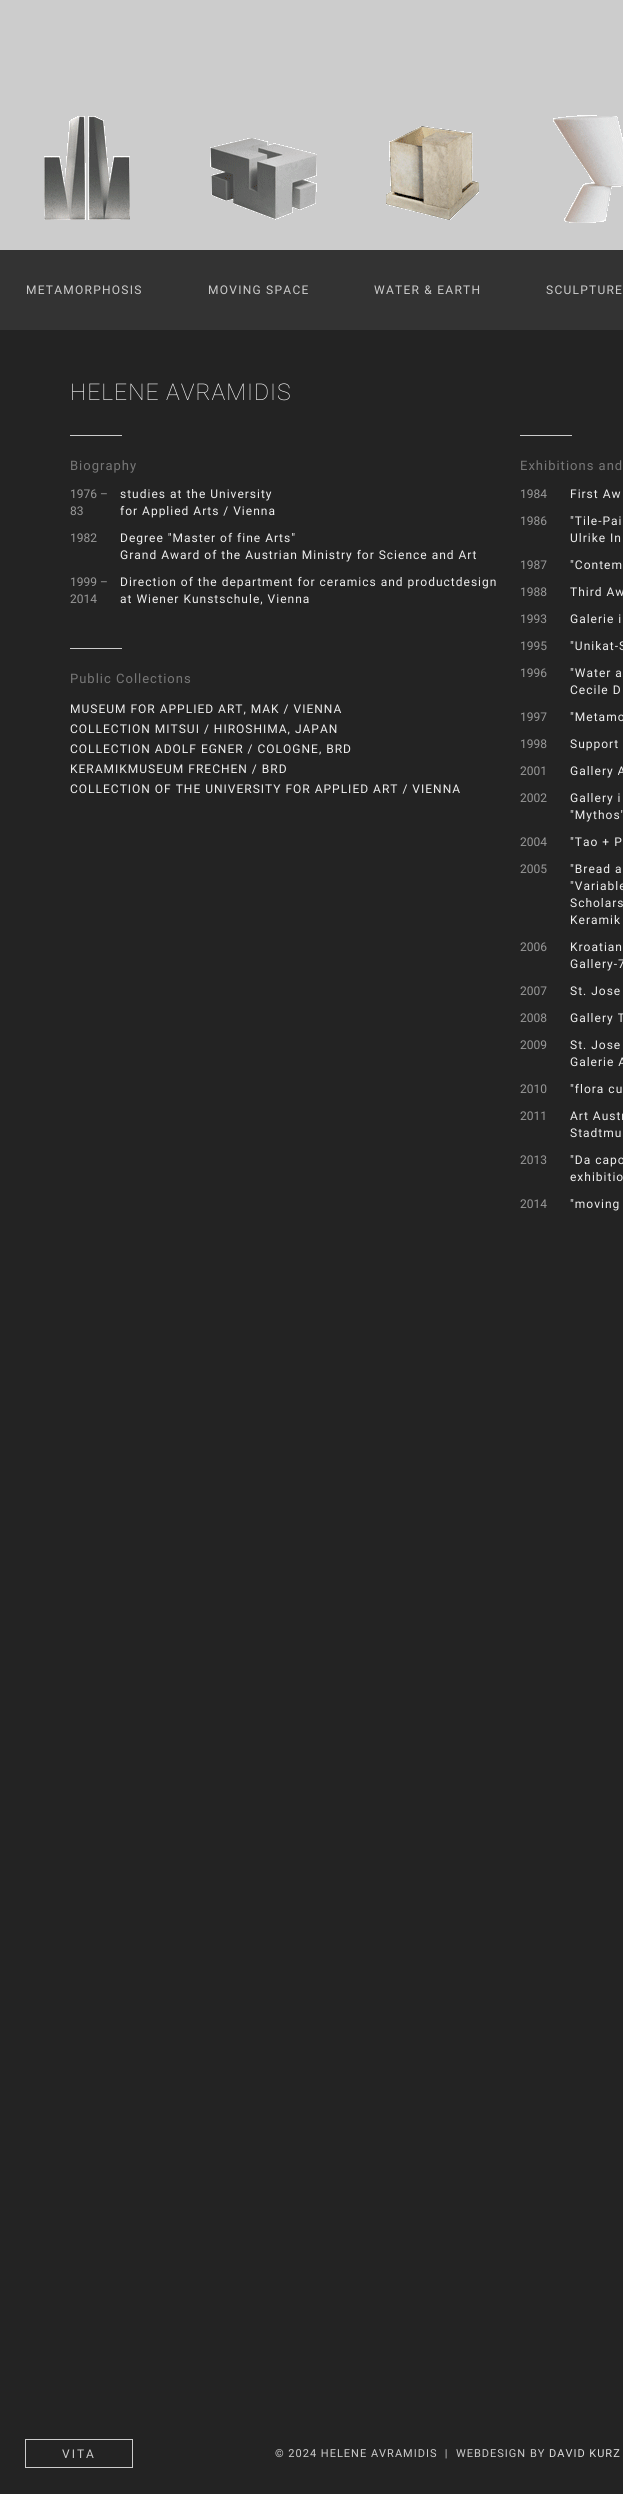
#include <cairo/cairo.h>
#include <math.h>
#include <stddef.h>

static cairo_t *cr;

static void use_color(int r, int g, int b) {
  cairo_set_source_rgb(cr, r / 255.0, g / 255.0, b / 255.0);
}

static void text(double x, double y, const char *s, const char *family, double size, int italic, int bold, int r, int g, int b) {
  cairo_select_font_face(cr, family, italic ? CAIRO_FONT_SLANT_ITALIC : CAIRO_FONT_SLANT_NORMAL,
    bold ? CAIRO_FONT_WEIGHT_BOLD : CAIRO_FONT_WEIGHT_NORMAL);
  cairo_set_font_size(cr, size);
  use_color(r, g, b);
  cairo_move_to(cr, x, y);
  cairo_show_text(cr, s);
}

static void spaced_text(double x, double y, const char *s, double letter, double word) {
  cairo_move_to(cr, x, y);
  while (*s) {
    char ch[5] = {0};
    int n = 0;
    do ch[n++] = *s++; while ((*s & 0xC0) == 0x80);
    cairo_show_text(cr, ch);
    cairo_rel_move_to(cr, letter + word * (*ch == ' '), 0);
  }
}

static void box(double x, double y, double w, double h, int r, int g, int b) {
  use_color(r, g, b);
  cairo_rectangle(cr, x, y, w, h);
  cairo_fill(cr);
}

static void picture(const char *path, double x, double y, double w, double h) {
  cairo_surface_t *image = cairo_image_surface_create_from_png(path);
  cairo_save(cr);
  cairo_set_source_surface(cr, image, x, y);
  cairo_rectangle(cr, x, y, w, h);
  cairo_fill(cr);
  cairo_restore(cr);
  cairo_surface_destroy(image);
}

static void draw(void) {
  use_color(35, 35, 35);
  cairo_paint(cr);
  box(0, 0, 623, 250, 204, 204, 204);
  picture("img_01.png", 44, 115, 579, 108);
  box(0, 250, 623, 80, 51, 51, 51);
  box(70, 435, 52, 1, 204, 204, 204);
  box(70, 648, 52, 1, 204, 204, 204);
  box(520, 435, 52, 1, 204, 204, 204);
  cairo_rectangle(cr, 25.5, 2439.5, 107, 28);
  cairo_set_line_width(cr, 1);
  cairo_stroke(cr);
  cairo_select_font_face(cr, "Roboto", CAIRO_FONT_SLANT_NORMAL, CAIRO_FONT_WEIGHT_NORMAL);
  cairo_set_font_size(cr, 12);
  spaced_text(26, 294, "METAMORPHOSIS", 1.25, 0);
  spaced_text(208, 294, "MOVING SPACE", 1.25, 0);
  spaced_text(374, 294, "WATER & EARTH", 1.25, 0);
  spaced_text(546, 294, "SCULPTURE", 1.25, 0);
  cairo_select_font_face(cr, "Roboto Thin", CAIRO_FONT_SLANT_NORMAL, CAIRO_FONT_WEIGHT_NORMAL);
  cairo_set_font_size(cr, 23);
  use_color(255, 255, 255);
  spaced_text(70, 400, "HELENE AVRAMIDIS", 1, 0);
  cairo_select_font_face(cr, "Roboto", CAIRO_FONT_SLANT_NORMAL, CAIRO_FONT_WEIGHT_NORMAL);
  cairo_set_font_size(cr, 13);
  use_color(119, 119, 119);
  spaced_text(70, 470, "Biography", 1, 0);
  text(70, 498, "1976 –", "Roboto", 12, 0, 0, 153, 153, 153);
  text(70, 515, "83", "Roboto", 12, 0, 0, 153, 153, 153);
  use_color(238, 238, 238);
  spaced_text(120, 498, "studies at the University", 1, 0);
  spaced_text(120, 515, "for Applied Arts / Vienna", 1, 0);
  text(70, 542, "1982", "Roboto", 12, 0, 0, 153, 153, 153);
  use_color(238, 238, 238);
  spaced_text(120, 542, "Degree \"Master of fine Arts\"", 1, 0);
  spaced_text(120, 559, "Grand Award of the Austrian Ministry for Science and Art", 1, 0);
  text(70, 586, "1999 –", "Roboto", 12, 0, 0, 153, 153, 153);
  text(70, 603, "2014", "Roboto", 12, 0, 0, 153, 153, 153);
  use_color(238, 238, 238);
  spaced_text(120, 586, "Direction of the department for ceramics and productdesign", 1, 0);
  spaced_text(120, 603, "at Wiener Kunstschule, Vienna", 1, 0);
  cairo_set_font_size(cr, 13);
  use_color(119, 119, 119);
  spaced_text(70, 683, "Public Collections", 1, 0);
  cairo_set_font_size(cr, 12);
  use_color(238, 238, 238);
  spaced_text(70, 713, "MUSEUM FOR APPLIED ART, MAK / VIENNA", 1, 0);
  spaced_text(70, 733, "COLLECTION MITSUI / HIROSHIMA, JAPAN", 1, 0);
  spaced_text(70, 753, "COLLECTION ADOLF EGNER / COLOGNE, BRD", 1, 0);
  spaced_text(70, 773, "KERAMIKMUSEUM FRECHEN / BRD", 1, 0);
  spaced_text(70, 793, "COLLECTION OF THE UNIVERSITY FOR APPLIED ART / VIENNA", 1, 0);
  cairo_set_font_size(cr, 13);
  use_color(119, 119, 119);
  spaced_text(520, 470, "Exhibitions and", 1, 0);
  text(520, 498, "1984", "Roboto", 12, 0, 0, 153, 153, 153);
  use_color(238, 238, 238);
  spaced_text(570, 498, "First Aw", 1, 0);
  text(520, 525, "1986", "Roboto", 12, 0, 0, 153, 153, 153);
  use_color(238, 238, 238);
  spaced_text(570, 525, "\"Tile-Pai", 1, 0);
  spaced_text(570, 542, "Ulrike In", 1, 0);
  text(520, 569, "1987", "Roboto", 12, 0, 0, 153, 153, 153);
  use_color(238, 238, 238);
  spaced_text(570, 569, "\"Contem", 1, 0);
  text(520, 596, "1988", "Roboto", 12, 0, 0, 153, 153, 153);
  use_color(238, 238, 238);
  spaced_text(570, 596, "Third Aw", 1, 0);
  text(520, 623, "1993", "Roboto", 12, 0, 0, 153, 153, 153);
  use_color(238, 238, 238);
  spaced_text(570, 623, "Galerie i", 1, 0);
  text(520, 650, "1995", "Roboto", 12, 0, 0, 153, 153, 153);
  use_color(238, 238, 238);
  spaced_text(570, 650, "\"Unikat-S", 1, 0);
  text(520, 677, "1996", "Roboto", 12, 0, 0, 153, 153, 153);
  use_color(238, 238, 238);
  spaced_text(570, 677, "\"Water a", 1, 0);
  spaced_text(570, 694, "Cecile D", 1, 0);
  text(520, 721, "1997", "Roboto", 12, 0, 0, 153, 153, 153);
  use_color(238, 238, 238);
  spaced_text(570, 721, "\"Metamo", 1, 0);
  text(520, 748, "1998", "Roboto", 12, 0, 0, 153, 153, 153);
  use_color(238, 238, 238);
  spaced_text(570, 748, "Support", 1, 0);
  text(520, 775, "2001", "Roboto", 12, 0, 0, 153, 153, 153);
  use_color(238, 238, 238);
  spaced_text(570, 775, "Gallery A", 1, 0);
  text(520, 802, "2002", "Roboto", 12, 0, 0, 153, 153, 153);
  use_color(238, 238, 238);
  spaced_text(570, 802, "Gallery i", 1, 0);
  spaced_text(570, 819, "\"Mythos\"", 1, 0);
  text(520, 846, "2004", "Roboto", 12, 0, 0, 153, 153, 153);
  use_color(238, 238, 238);
  spaced_text(570, 846, "\"Tao + P", 1, 0);
  text(520, 873, "2005", "Roboto", 12, 0, 0, 153, 153, 153);
  use_color(238, 238, 238);
  spaced_text(570, 873, "\"Bread a", 1, 0);
  spaced_text(570, 890, "\"Variable", 1, 0);
  spaced_text(570, 907, "Scholars", 1, 0);
  spaced_text(570, 924, "Keramik", 1, 0);
  text(520, 951, "2006", "Roboto", 12, 0, 0, 153, 153, 153);
  use_color(238, 238, 238);
  spaced_text(570, 951, "Kroatian", 1, 0);
  spaced_text(570, 968, "Gallery-7", 1, 0);
  text(520, 995, "2007", "Roboto", 12, 0, 0, 153, 153, 153);
  use_color(238, 238, 238);
  spaced_text(570, 995, "St. Jose", 1, 0);
  text(520, 1022, "2008", "Roboto", 12, 0, 0, 153, 153, 153);
  use_color(238, 238, 238);
  spaced_text(570, 1022, "Gallery T", 1, 0);
  text(520, 1049, "2009", "Roboto", 12, 0, 0, 153, 153, 153);
  use_color(238, 238, 238);
  spaced_text(570, 1049, "St. Jose", 1, 0);
  spaced_text(570, 1066, "Galerie A", 1, 0);
  text(520, 1093, "2010", "Roboto", 12, 0, 0, 153, 153, 153);
  use_color(238, 238, 238);
  spaced_text(570, 1093, "\"flora cu", 1, 0);
  text(520, 1120, "2011", "Roboto", 12, 0, 0, 153, 153, 153);
  use_color(238, 238, 238);
  spaced_text(570, 1120, "Art Austr", 1, 0);
  spaced_text(570, 1137, "Stadtmu", 1, 0);
  text(520, 1164, "2013", "Roboto", 12, 0, 0, 153, 153, 153);
  use_color(238, 238, 238);
  spaced_text(570, 1164, "\"Da capo", 1, 0);
  spaced_text(570, 1181, "exhibitio", 1, 0);
  text(520, 1208, "2014", "Roboto", 12, 0, 0, 153, 153, 153);
  use_color(238, 238, 238);
  spaced_text(570, 1208, "\"moving", 1, 0);
  use_color(204, 204, 204);
  spaced_text(62, 2458, "VITA", 2, 0);
  cairo_set_font_size(cr, 11);
  spaced_text(275, 2457, "© 2024 HELENE AVRAMIDIS  |  WEBDESIGN BY", 1, 0);
  use_color(221, 221, 221);
  spaced_text(549, 2457, "DAVID KURZ", 1, 0);
}

int main(void) {
  cairo_surface_t *surface = cairo_image_surface_create(CAIRO_FORMAT_RGB24, 623, 2494);
  cr = cairo_create(surface);
  cairo_font_options_t *options = cairo_font_options_create();
  cairo_font_options_set_hint_metrics(options, CAIRO_HINT_METRICS_OFF);
  cairo_font_options_set_hint_style(options, CAIRO_HINT_STYLE_NONE);
  cairo_set_font_options(cr, options);
  cairo_set_miter_limit(cr, 4);
  draw();
  cairo_surface_write_to_png(surface, "out.png");
  cairo_font_options_destroy(options);
  cairo_destroy(cr);
  cairo_surface_destroy(surface);
  return 0;
}
